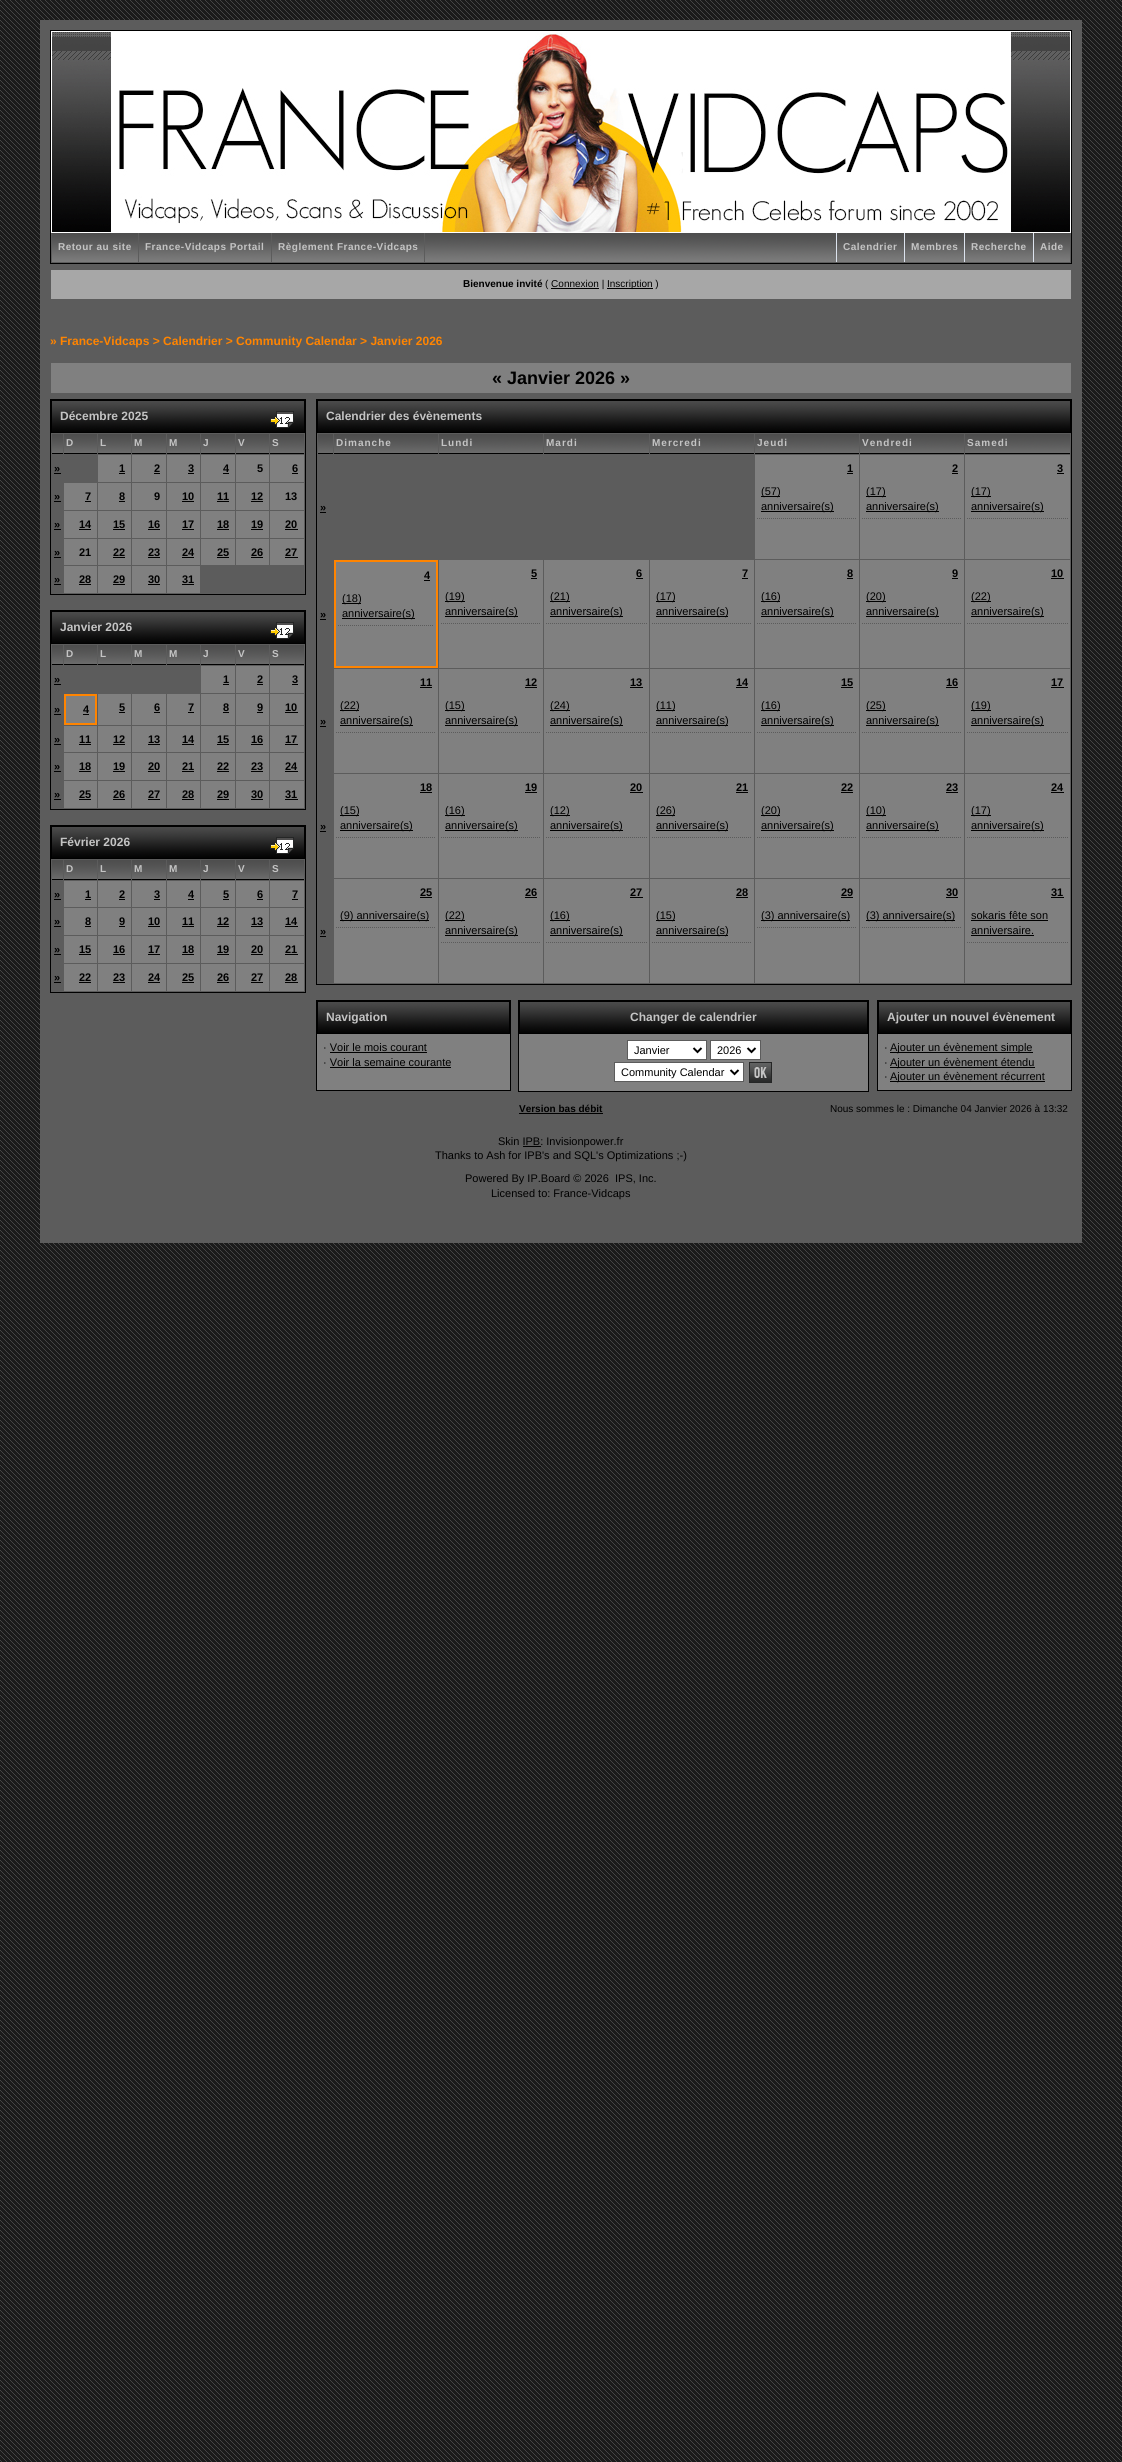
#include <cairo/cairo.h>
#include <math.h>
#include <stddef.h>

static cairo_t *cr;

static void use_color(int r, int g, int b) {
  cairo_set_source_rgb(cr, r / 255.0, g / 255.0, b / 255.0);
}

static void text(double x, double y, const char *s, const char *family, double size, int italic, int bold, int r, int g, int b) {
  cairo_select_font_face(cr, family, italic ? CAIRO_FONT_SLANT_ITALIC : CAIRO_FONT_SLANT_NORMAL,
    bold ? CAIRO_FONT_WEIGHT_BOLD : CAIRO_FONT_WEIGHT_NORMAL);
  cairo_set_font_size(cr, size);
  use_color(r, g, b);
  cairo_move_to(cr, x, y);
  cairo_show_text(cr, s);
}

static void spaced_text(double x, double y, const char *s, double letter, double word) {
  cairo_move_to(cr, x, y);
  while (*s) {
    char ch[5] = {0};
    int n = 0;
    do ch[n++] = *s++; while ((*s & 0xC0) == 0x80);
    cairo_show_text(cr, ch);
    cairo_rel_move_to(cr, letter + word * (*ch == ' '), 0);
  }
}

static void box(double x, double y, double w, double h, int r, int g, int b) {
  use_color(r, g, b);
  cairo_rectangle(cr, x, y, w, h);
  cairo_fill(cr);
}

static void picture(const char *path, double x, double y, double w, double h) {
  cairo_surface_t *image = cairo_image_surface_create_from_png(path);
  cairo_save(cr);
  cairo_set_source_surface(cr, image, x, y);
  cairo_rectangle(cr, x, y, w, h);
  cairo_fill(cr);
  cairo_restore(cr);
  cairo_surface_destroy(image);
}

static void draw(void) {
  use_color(255, 255, 255);
  cairo_paint(cr);
  picture("img_01.png", 0, 0, 1122, 2462);
  box(40, 20, 1042, 1223, 92, 92, 92);
  cairo_rectangle(cr, 50.5, 30.5, 1021, 233);
  use_color(0, 0, 0);
  cairo_set_line_width(cr, 1);
  cairo_stroke(cr);
  picture("img_02.png", 52, 32, 1018, 200);
  cairo_rectangle(cr, 51.5, 31.5, 1019, 201);
  use_color(255, 255, 255);
  cairo_stroke(cr);
  picture("img_03.png", 111, 32, 900, 200);
  picture("img_04.png", 52, 233, 1018, 29);
  box(138, 233, 1, 29, 92, 92, 92);
  box(271, 233, 1, 29, 92, 92, 92);
  box(424, 233, 1, 29, 92, 92, 92);
  box(836, 233, 1, 29, 220, 227, 238);
  box(904, 233, 1, 29, 220, 227, 238);
  box(964, 233, 1, 29, 220, 227, 238);
  box(1033, 233, 1, 29, 220, 227, 238);
  box(51, 270, 1020, 29, 167, 167, 167);
  box(607, 288, 46, 1, 0, 0, 0);
  box(551, 288, 48, 1, 0, 0, 0);
  box(51, 363, 1020, 30, 128, 128, 128);
  cairo_rectangle(cr, 50.5, 399.5, 255, 195);
  use_color(0, 0, 0);
  cairo_stroke(cr);
  picture("img_05.png", 52, 401, 252, 31);
  cairo_rectangle(cr, 51.5, 400.5, 253, 32);
  cairo_stroke(cr);
  picture("img_06.png", 270, 411, 24, 17);
  picture("img_07.png", 52, 434, 11, 19);
  box(52, 453, 11, 1, 0, 0, 0);
  picture("img_08.png", 64, 434, 33, 19);
  box(64, 453, 33, 1, 0, 0, 0);
  picture("img_08.png", 98, 434, 33, 19);
  box(98, 453, 33, 1, 0, 0, 0);
  picture("img_09.png", 132, 434, 34, 19);
  box(132, 453, 34, 1, 0, 0, 0);
  picture("img_08.png", 167, 434, 33, 19);
  box(167, 453, 33, 1, 0, 0, 0);
  picture("img_09.png", 201, 434, 34, 19);
  box(201, 453, 34, 1, 0, 0, 0);
  picture("img_08.png", 236, 434, 33, 19);
  box(236, 453, 33, 1, 0, 0, 0);
  picture("img_09.png", 270, 434, 34, 19);
  box(270, 453, 34, 1, 0, 0, 0);
  box(54, 473, 7, 1, 0, 0, 0);
  box(98, 455, 33, 27, 128, 128, 128);
  box(119, 473, 6, 1, 0, 0, 0);
  box(132, 455, 34, 27, 128, 128, 128);
  box(154, 473, 6, 1, 0, 0, 0);
  box(167, 455, 33, 27, 128, 128, 128);
  box(188, 473, 6, 1, 0, 0, 0);
  box(201, 455, 34, 27, 128, 128, 128);
  box(223, 473, 6, 1, 0, 0, 0);
  box(236, 455, 33, 27, 128, 128, 128);
  box(270, 455, 34, 27, 128, 128, 128);
  box(292, 473, 6, 1, 0, 0, 0);
  box(54, 501, 7, 1, 0, 0, 0);
  box(64, 483, 33, 27, 128, 128, 128);
  box(85, 501, 6, 1, 0, 0, 0);
  box(98, 483, 33, 27, 128, 128, 128);
  box(119, 501, 6, 1, 0, 0, 0);
  box(132, 483, 34, 27, 128, 128, 128);
  box(167, 483, 33, 27, 128, 128, 128);
  box(182, 501, 12, 1, 0, 0, 0);
  box(201, 483, 34, 27, 128, 128, 128);
  box(217, 501, 12, 1, 0, 0, 0);
  box(236, 483, 33, 27, 128, 128, 128);
  box(251, 501, 12, 1, 0, 0, 0);
  box(270, 483, 34, 27, 128, 128, 128);
  box(54, 529, 7, 1, 0, 0, 0);
  box(64, 511, 33, 27, 128, 128, 128);
  box(79, 529, 12, 1, 0, 0, 0);
  box(98, 511, 33, 27, 128, 128, 128);
  box(113, 529, 12, 1, 0, 0, 0);
  box(132, 511, 34, 27, 128, 128, 128);
  box(148, 529, 12, 1, 0, 0, 0);
  box(167, 511, 33, 27, 128, 128, 128);
  box(182, 529, 12, 1, 0, 0, 0);
  box(201, 511, 34, 27, 128, 128, 128);
  box(217, 529, 12, 1, 0, 0, 0);
  box(236, 511, 33, 27, 128, 128, 128);
  box(251, 529, 12, 1, 0, 0, 0);
  box(270, 511, 34, 27, 128, 128, 128);
  box(285, 529, 13, 1, 0, 0, 0);
  box(54, 557, 7, 1, 0, 0, 0);
  box(64, 539, 33, 26, 128, 128, 128);
  box(98, 539, 33, 26, 128, 128, 128);
  box(113, 557, 12, 1, 0, 0, 0);
  box(132, 539, 34, 26, 128, 128, 128);
  box(148, 557, 12, 1, 0, 0, 0);
  box(167, 539, 33, 26, 128, 128, 128);
  box(182, 557, 12, 1, 0, 0, 0);
  box(201, 539, 34, 26, 128, 128, 128);
  box(217, 557, 12, 1, 0, 0, 0);
  box(236, 539, 33, 26, 128, 128, 128);
  box(251, 557, 12, 1, 0, 0, 0);
  box(270, 539, 34, 26, 128, 128, 128);
  box(285, 557, 13, 1, 0, 0, 0);
  box(54, 584, 7, 1, 0, 0, 0);
  box(64, 566, 33, 27, 128, 128, 128);
  box(79, 584, 12, 1, 0, 0, 0);
  box(98, 566, 33, 27, 128, 128, 128);
  box(113, 584, 12, 1, 0, 0, 0);
  box(132, 566, 34, 27, 128, 128, 128);
  box(148, 584, 12, 1, 0, 0, 0);
  box(167, 566, 33, 27, 128, 128, 128);
  box(182, 584, 12, 1, 0, 0, 0);
  cairo_rectangle(cr, 50.5, 610.5, 255, 199);
  cairo_stroke(cr);
  picture("img_05.png", 52, 612, 252, 31);
  cairo_rectangle(cr, 51.5, 611.5, 253, 32);
  cairo_stroke(cr);
  picture("img_06.png", 270, 622, 24, 17);
  picture("img_07.png", 52, 645, 11, 19);
  box(52, 664, 11, 1, 0, 0, 0);
  picture("img_08.png", 64, 645, 33, 19);
  box(64, 664, 33, 1, 0, 0, 0);
  picture("img_08.png", 98, 645, 33, 19);
  box(98, 664, 33, 1, 0, 0, 0);
  picture("img_09.png", 132, 645, 34, 19);
  box(132, 664, 34, 1, 0, 0, 0);
  picture("img_08.png", 167, 645, 33, 19);
  box(167, 664, 33, 1, 0, 0, 0);
  picture("img_09.png", 201, 645, 34, 19);
  box(201, 664, 34, 1, 0, 0, 0);
  picture("img_08.png", 236, 645, 33, 19);
  box(236, 664, 33, 1, 0, 0, 0);
  picture("img_09.png", 270, 645, 34, 19);
  box(270, 664, 34, 1, 0, 0, 0);
  box(54, 684, 7, 1, 0, 0, 0);
  box(201, 666, 34, 27, 128, 128, 128);
  box(223, 684, 6, 1, 0, 0, 0);
  box(236, 666, 33, 27, 128, 128, 128);
  box(257, 684, 6, 1, 0, 0, 0);
  box(270, 666, 34, 27, 128, 128, 128);
  box(292, 684, 6, 1, 0, 0, 0);
  box(54, 714, 7, 1, 0, 0, 0);
  use_color(128, 128, 128);
  cairo_rectangle(cr, 65, 695, 31, 29);
  cairo_fill_preserve(cr);
  use_color(255, 132, 0);
  cairo_set_line_width(cr, 2);
  cairo_stroke(cr);
  box(83, 714, 6, 1, 0, 0, 0);
  box(98, 694, 33, 31, 128, 128, 128);
  box(119, 712, 6, 1, 0, 0, 0);
  box(132, 694, 34, 31, 128, 128, 128);
  box(154, 712, 6, 1, 0, 0, 0);
  box(167, 694, 33, 31, 128, 128, 128);
  box(188, 712, 6, 1, 0, 0, 0);
  box(201, 694, 34, 31, 128, 128, 128);
  box(223, 712, 6, 1, 0, 0, 0);
  box(236, 694, 33, 31, 128, 128, 128);
  box(257, 712, 6, 1, 0, 0, 0);
  box(270, 694, 34, 31, 128, 128, 128);
  box(285, 712, 13, 1, 0, 0, 0);
  box(54, 744, 7, 1, 0, 0, 0);
  box(64, 726, 33, 26, 128, 128, 128);
  box(79, 744, 12, 1, 0, 0, 0);
  box(98, 726, 33, 26, 128, 128, 128);
  box(113, 744, 12, 1, 0, 0, 0);
  box(132, 726, 34, 26, 128, 128, 128);
  box(148, 744, 12, 1, 0, 0, 0);
  box(167, 726, 33, 26, 128, 128, 128);
  box(182, 744, 12, 1, 0, 0, 0);
  box(201, 726, 34, 26, 128, 128, 128);
  box(217, 744, 12, 1, 0, 0, 0);
  box(236, 726, 33, 26, 128, 128, 128);
  box(251, 744, 12, 1, 0, 0, 0);
  box(270, 726, 34, 26, 128, 128, 128);
  box(285, 744, 13, 1, 0, 0, 0);
  box(54, 771, 7, 1, 0, 0, 0);
  box(64, 753, 33, 27, 128, 128, 128);
  box(79, 771, 12, 1, 0, 0, 0);
  box(98, 753, 33, 27, 128, 128, 128);
  box(113, 771, 12, 1, 0, 0, 0);
  box(132, 753, 34, 27, 128, 128, 128);
  box(148, 771, 12, 1, 0, 0, 0);
  box(167, 753, 33, 27, 128, 128, 128);
  box(182, 771, 12, 1, 0, 0, 0);
  box(201, 753, 34, 27, 128, 128, 128);
  box(217, 771, 12, 1, 0, 0, 0);
  box(236, 753, 33, 27, 128, 128, 128);
  box(251, 771, 12, 1, 0, 0, 0);
  box(270, 753, 34, 27, 128, 128, 128);
  box(285, 771, 13, 1, 0, 0, 0);
  box(54, 799, 7, 1, 0, 0, 0);
  box(64, 781, 33, 27, 128, 128, 128);
  box(79, 799, 12, 1, 0, 0, 0);
  box(98, 781, 33, 27, 128, 128, 128);
  box(113, 799, 12, 1, 0, 0, 0);
  box(132, 781, 34, 27, 128, 128, 128);
  box(148, 799, 12, 1, 0, 0, 0);
  box(167, 781, 33, 27, 128, 128, 128);
  box(182, 799, 12, 1, 0, 0, 0);
  box(201, 781, 34, 27, 128, 128, 128);
  box(217, 799, 12, 1, 0, 0, 0);
  box(236, 781, 33, 27, 128, 128, 128);
  box(251, 799, 12, 1, 0, 0, 0);
  box(270, 781, 34, 27, 128, 128, 128);
  box(285, 799, 13, 1, 0, 0, 0);
  cairo_rectangle(cr, 50.5, 825.5, 255, 167);
  cairo_set_line_width(cr, 1);
  cairo_stroke(cr);
  picture("img_05.png", 52, 827, 252, 31);
  cairo_rectangle(cr, 51.5, 826.5, 253, 32);
  cairo_stroke(cr);
  picture("img_06.png", 270, 837, 24, 17);
  picture("img_07.png", 52, 860, 11, 19);
  box(52, 879, 11, 1, 0, 0, 0);
  picture("img_08.png", 64, 860, 33, 19);
  box(64, 879, 33, 1, 0, 0, 0);
  picture("img_08.png", 98, 860, 33, 19);
  box(98, 879, 33, 1, 0, 0, 0);
  picture("img_09.png", 132, 860, 34, 19);
  box(132, 879, 34, 1, 0, 0, 0);
  picture("img_08.png", 167, 860, 33, 19);
  box(167, 879, 33, 1, 0, 0, 0);
  picture("img_09.png", 201, 860, 34, 19);
  box(201, 879, 34, 1, 0, 0, 0);
  picture("img_08.png", 236, 860, 33, 19);
  box(236, 879, 33, 1, 0, 0, 0);
  picture("img_09.png", 270, 860, 34, 19);
  box(270, 879, 34, 1, 0, 0, 0);
  box(54, 899, 7, 1, 0, 0, 0);
  box(64, 881, 33, 26, 128, 128, 128);
  box(85, 899, 6, 1, 0, 0, 0);
  box(98, 881, 33, 26, 128, 128, 128);
  box(119, 899, 6, 1, 0, 0, 0);
  box(132, 881, 34, 26, 128, 128, 128);
  box(154, 899, 6, 1, 0, 0, 0);
  box(167, 881, 33, 26, 128, 128, 128);
  box(188, 899, 6, 1, 0, 0, 0);
  box(201, 881, 34, 26, 128, 128, 128);
  box(223, 899, 6, 1, 0, 0, 0);
  box(236, 881, 33, 26, 128, 128, 128);
  box(257, 899, 6, 1, 0, 0, 0);
  box(270, 881, 34, 26, 128, 128, 128);
  box(292, 899, 6, 1, 0, 0, 0);
  box(54, 926, 7, 1, 0, 0, 0);
  box(64, 908, 33, 27, 128, 128, 128);
  box(85, 926, 6, 1, 0, 0, 0);
  box(98, 908, 33, 27, 128, 128, 128);
  box(119, 926, 6, 1, 0, 0, 0);
  box(132, 908, 34, 27, 128, 128, 128);
  box(148, 926, 12, 1, 0, 0, 0);
  box(167, 908, 33, 27, 128, 128, 128);
  box(182, 926, 12, 1, 0, 0, 0);
  box(201, 908, 34, 27, 128, 128, 128);
  box(217, 926, 12, 1, 0, 0, 0);
  box(236, 908, 33, 27, 128, 128, 128);
  box(251, 926, 12, 1, 0, 0, 0);
  box(270, 908, 34, 27, 128, 128, 128);
  box(285, 926, 13, 1, 0, 0, 0);
  box(54, 954, 7, 1, 0, 0, 0);
  box(64, 936, 33, 27, 128, 128, 128);
  box(79, 954, 12, 1, 0, 0, 0);
  box(98, 936, 33, 27, 128, 128, 128);
  box(113, 954, 12, 1, 0, 0, 0);
  box(132, 936, 34, 27, 128, 128, 128);
  box(148, 954, 12, 1, 0, 0, 0);
  box(167, 936, 33, 27, 128, 128, 128);
  box(182, 954, 12, 1, 0, 0, 0);
  box(201, 936, 34, 27, 128, 128, 128);
  box(217, 954, 12, 1, 0, 0, 0);
  box(236, 936, 33, 27, 128, 128, 128);
  box(251, 954, 12, 1, 0, 0, 0);
  box(270, 936, 34, 27, 128, 128, 128);
  box(285, 954, 13, 1, 0, 0, 0);
  box(54, 982, 7, 1, 0, 0, 0);
  box(64, 964, 33, 27, 128, 128, 128);
  box(79, 982, 12, 1, 0, 0, 0);
  box(98, 964, 33, 27, 128, 128, 128);
  box(113, 982, 12, 1, 0, 0, 0);
  box(132, 964, 34, 27, 128, 128, 128);
  box(148, 982, 12, 1, 0, 0, 0);
  box(167, 964, 33, 27, 128, 128, 128);
  box(182, 982, 12, 1, 0, 0, 0);
  box(201, 964, 34, 27, 128, 128, 128);
  box(217, 982, 12, 1, 0, 0, 0);
  box(236, 964, 33, 27, 128, 128, 128);
  box(251, 982, 12, 1, 0, 0, 0);
  box(270, 964, 34, 27, 128, 128, 128);
  box(285, 982, 13, 1, 0, 0, 0);
  cairo_rectangle(cr, 316.5, 399.5, 755, 585);
  cairo_stroke(cr);
  picture("img_10.png", 318, 401, 752, 31);
  cairo_rectangle(cr, 317.5, 400.5, 753, 32);
  cairo_stroke(cr);
  picture("img_11.png", 318, 434, 15, 19);
  box(318, 453, 15, 1, 0, 0, 0);
  picture("img_12.png", 334, 434, 104, 19);
  box(334, 453, 104, 1, 0, 0, 0);
  picture("img_12.png", 439, 434, 104, 19);
  box(439, 453, 104, 1, 0, 0, 0);
  picture("img_13.png", 544, 434, 105, 19);
  box(544, 453, 105, 1, 0, 0, 0);
  picture("img_12.png", 650, 434, 104, 19);
  box(650, 453, 104, 1, 0, 0, 0);
  picture("img_12.png", 755, 434, 104, 19);
  box(755, 453, 104, 1, 0, 0, 0);
  picture("img_12.png", 860, 434, 104, 19);
  box(860, 453, 104, 1, 0, 0, 0);
  picture("img_13.png", 965, 434, 105, 19);
  box(965, 453, 105, 1, 0, 0, 0);
  box(320, 512, 6, 1, 0, 0, 0);
  box(755, 455, 104, 104, 128, 128, 128);
  box(847, 473, 6, 1, 0, 0, 0);
  cairo_new_path(cr);
  cairo_move_to(cr, 757, 518.5);
  cairo_line_to(cr, 857, 518.5);
  use_color(92, 92, 92);
  cairo_set_dash(cr, (double[]){1, 1}, 2, 0);
  cairo_stroke(cr);
  box(761, 496, 19, 1, 0, 0, 0);
  box(761, 511, 73, 1, 0, 0, 0);
  box(860, 455, 104, 104, 128, 128, 128);
  box(952, 473, 6, 1, 0, 0, 0);
  cairo_new_path(cr);
  cairo_move_to(cr, 862, 518.5);
  cairo_line_to(cr, 962, 518.5);
  use_color(92, 92, 92);
  cairo_stroke(cr);
  box(866, 496, 20, 1, 0, 0, 0);
  box(866, 511, 73, 1, 0, 0, 0);
  box(965, 455, 105, 104, 128, 128, 128);
  box(1057, 473, 7, 1, 0, 0, 0);
  cairo_new_path(cr);
  cairo_move_to(cr, 967, 518.5);
  cairo_line_to(cr, 1068, 518.5);
  use_color(92, 92, 92);
  cairo_stroke(cr);
  box(971, 496, 20, 1, 0, 0, 0);
  box(971, 511, 73, 1, 0, 0, 0);
  box(320, 619, 6, 1, 0, 0, 0);
  use_color(128, 128, 128);
  cairo_rectangle(cr, 335, 561, 102, 106);
  cairo_fill_preserve(cr);
  use_color(255, 132, 0);
  cairo_set_line_width(cr, 2);
  cairo_set_dash(cr, NULL, 0, 0);
  cairo_stroke(cr);
  box(424, 580, 6, 1, 0, 0, 0);
  cairo_new_path(cr);
  cairo_move_to(cr, 338, 625.5);
  cairo_line_to(cr, 434, 625.5);
  use_color(92, 92, 92);
  cairo_set_line_width(cr, 1);
  cairo_set_dash(cr, (double[]){1, 1}, 2, 0);
  cairo_stroke(cr);
  box(342, 603, 19, 1, 0, 0, 0);
  box(342, 618, 73, 1, 0, 0, 0);
  box(439, 560, 104, 108, 128, 128, 128);
  box(531, 578, 6, 1, 0, 0, 0);
  cairo_new_path(cr);
  cairo_move_to(cr, 441, 623.5);
  cairo_line_to(cr, 541, 623.5);
  use_color(92, 92, 92);
  cairo_stroke(cr);
  box(445, 601, 20, 1, 0, 0, 0);
  box(445, 616, 73, 1, 0, 0, 0);
  box(544, 560, 105, 108, 128, 128, 128);
  box(636, 578, 7, 1, 0, 0, 0);
  cairo_new_path(cr);
  cairo_move_to(cr, 546, 623.5);
  cairo_line_to(cr, 647, 623.5);
  use_color(92, 92, 92);
  cairo_stroke(cr);
  box(550, 601, 20, 1, 0, 0, 0);
  box(550, 616, 73, 1, 0, 0, 0);
  box(650, 560, 104, 108, 128, 128, 128);
  box(742, 578, 6, 1, 0, 0, 0);
  cairo_new_path(cr);
  cairo_move_to(cr, 652, 623.5);
  cairo_line_to(cr, 752, 623.5);
  use_color(92, 92, 92);
  cairo_stroke(cr);
  box(656, 601, 19, 1, 0, 0, 0);
  box(656, 616, 72, 1, 0, 0, 0);
  box(755, 560, 104, 108, 128, 128, 128);
  box(847, 578, 6, 1, 0, 0, 0);
  cairo_new_path(cr);
  cairo_move_to(cr, 757, 623.5);
  cairo_line_to(cr, 857, 623.5);
  use_color(92, 92, 92);
  cairo_stroke(cr);
  box(761, 601, 19, 1, 0, 0, 0);
  box(761, 616, 73, 1, 0, 0, 0);
  box(860, 560, 104, 108, 128, 128, 128);
  box(952, 578, 6, 1, 0, 0, 0);
  cairo_new_path(cr);
  cairo_move_to(cr, 862, 623.5);
  cairo_line_to(cr, 962, 623.5);
  use_color(92, 92, 92);
  cairo_stroke(cr);
  box(866, 601, 20, 1, 0, 0, 0);
  box(866, 616, 73, 1, 0, 0, 0);
  box(965, 560, 105, 108, 128, 128, 128);
  box(1051, 578, 13, 1, 0, 0, 0);
  cairo_new_path(cr);
  cairo_move_to(cr, 967, 623.5);
  cairo_line_to(cr, 1068, 623.5);
  use_color(92, 92, 92);
  cairo_stroke(cr);
  box(971, 601, 20, 1, 0, 0, 0);
  box(971, 616, 73, 1, 0, 0, 0);
  box(320, 726, 6, 1, 0, 0, 0);
  box(334, 669, 104, 104, 128, 128, 128);
  box(420, 687, 12, 1, 0, 0, 0);
  cairo_new_path(cr);
  cairo_move_to(cr, 336, 732.5);
  cairo_line_to(cr, 436, 732.5);
  use_color(92, 92, 92);
  cairo_stroke(cr);
  box(340, 710, 19, 1, 0, 0, 0);
  box(340, 725, 73, 1, 0, 0, 0);
  box(439, 669, 104, 104, 128, 128, 128);
  box(525, 687, 12, 1, 0, 0, 0);
  cairo_new_path(cr);
  cairo_move_to(cr, 441, 732.5);
  cairo_line_to(cr, 541, 732.5);
  use_color(92, 92, 92);
  cairo_stroke(cr);
  box(445, 710, 20, 1, 0, 0, 0);
  box(445, 725, 73, 1, 0, 0, 0);
  box(544, 669, 105, 104, 128, 128, 128);
  box(630, 687, 13, 1, 0, 0, 0);
  cairo_new_path(cr);
  cairo_move_to(cr, 546, 732.5);
  cairo_line_to(cr, 647, 732.5);
  use_color(92, 92, 92);
  cairo_stroke(cr);
  box(550, 710, 20, 1, 0, 0, 0);
  box(550, 725, 73, 1, 0, 0, 0);
  box(650, 669, 104, 104, 128, 128, 128);
  box(736, 687, 12, 1, 0, 0, 0);
  cairo_new_path(cr);
  cairo_move_to(cr, 652, 732.5);
  cairo_line_to(cr, 752, 732.5);
  use_color(92, 92, 92);
  cairo_stroke(cr);
  box(656, 710, 19, 1, 0, 0, 0);
  box(656, 725, 72, 1, 0, 0, 0);
  box(755, 669, 104, 104, 128, 128, 128);
  box(841, 687, 12, 1, 0, 0, 0);
  cairo_new_path(cr);
  cairo_move_to(cr, 757, 732.5);
  cairo_line_to(cr, 857, 732.5);
  use_color(92, 92, 92);
  cairo_stroke(cr);
  box(761, 710, 19, 1, 0, 0, 0);
  box(761, 725, 73, 1, 0, 0, 0);
  box(860, 669, 104, 104, 128, 128, 128);
  box(946, 687, 12, 1, 0, 0, 0);
  cairo_new_path(cr);
  cairo_move_to(cr, 862, 732.5);
  cairo_line_to(cr, 962, 732.5);
  use_color(92, 92, 92);
  cairo_stroke(cr);
  box(866, 710, 20, 1, 0, 0, 0);
  box(866, 725, 73, 1, 0, 0, 0);
  box(965, 669, 105, 104, 128, 128, 128);
  box(1051, 687, 13, 1, 0, 0, 0);
  cairo_new_path(cr);
  cairo_move_to(cr, 967, 732.5);
  cairo_line_to(cr, 1068, 732.5);
  use_color(92, 92, 92);
  cairo_stroke(cr);
  box(971, 710, 20, 1, 0, 0, 0);
  box(971, 725, 73, 1, 0, 0, 0);
  box(320, 831, 6, 1, 0, 0, 0);
  box(334, 774, 104, 104, 128, 128, 128);
  box(420, 792, 12, 1, 0, 0, 0);
  cairo_new_path(cr);
  cairo_move_to(cr, 336, 837.5);
  cairo_line_to(cr, 436, 837.5);
  use_color(92, 92, 92);
  cairo_stroke(cr);
  box(340, 815, 19, 1, 0, 0, 0);
  box(340, 830, 73, 1, 0, 0, 0);
  box(439, 774, 104, 104, 128, 128, 128);
  box(525, 792, 12, 1, 0, 0, 0);
  cairo_new_path(cr);
  cairo_move_to(cr, 441, 837.5);
  cairo_line_to(cr, 541, 837.5);
  use_color(92, 92, 92);
  cairo_stroke(cr);
  box(445, 815, 20, 1, 0, 0, 0);
  box(445, 830, 73, 1, 0, 0, 0);
  box(544, 774, 105, 104, 128, 128, 128);
  box(630, 792, 13, 1, 0, 0, 0);
  cairo_new_path(cr);
  cairo_move_to(cr, 546, 837.5);
  cairo_line_to(cr, 647, 837.5);
  use_color(92, 92, 92);
  cairo_stroke(cr);
  box(550, 815, 20, 1, 0, 0, 0);
  box(550, 830, 73, 1, 0, 0, 0);
  box(650, 774, 104, 104, 128, 128, 128);
  box(736, 792, 12, 1, 0, 0, 0);
  cairo_new_path(cr);
  cairo_move_to(cr, 652, 837.5);
  cairo_line_to(cr, 752, 837.5);
  use_color(92, 92, 92);
  cairo_stroke(cr);
  box(656, 815, 19, 1, 0, 0, 0);
  box(656, 830, 72, 1, 0, 0, 0);
  box(755, 774, 104, 104, 128, 128, 128);
  box(841, 792, 12, 1, 0, 0, 0);
  cairo_new_path(cr);
  cairo_move_to(cr, 757, 837.5);
  cairo_line_to(cr, 857, 837.5);
  use_color(92, 92, 92);
  cairo_stroke(cr);
  box(761, 815, 19, 1, 0, 0, 0);
  box(761, 830, 73, 1, 0, 0, 0);
  box(860, 774, 104, 104, 128, 128, 128);
  box(946, 792, 12, 1, 0, 0, 0);
  cairo_new_path(cr);
  cairo_move_to(cr, 862, 837.5);
  cairo_line_to(cr, 962, 837.5);
  use_color(92, 92, 92);
  cairo_stroke(cr);
  box(866, 815, 20, 1, 0, 0, 0);
  box(866, 830, 73, 1, 0, 0, 0);
  box(965, 774, 105, 104, 128, 128, 128);
  box(1051, 792, 13, 1, 0, 0, 0);
  cairo_new_path(cr);
  cairo_move_to(cr, 967, 837.5);
  cairo_line_to(cr, 1068, 837.5);
  use_color(92, 92, 92);
  cairo_stroke(cr);
  box(971, 815, 20, 1, 0, 0, 0);
  box(971, 830, 73, 1, 0, 0, 0);
  box(320, 936, 6, 1, 0, 0, 0);
  box(334, 879, 104, 104, 128, 128, 128);
  box(420, 897, 12, 1, 0, 0, 0);
  cairo_new_path(cr);
  cairo_move_to(cr, 336, 927.5);
  cairo_line_to(cr, 436, 927.5);
  use_color(92, 92, 92);
  cairo_stroke(cr);
  box(340, 920, 89, 1, 0, 0, 0);
  box(439, 879, 104, 104, 128, 128, 128);
  box(525, 897, 12, 1, 0, 0, 0);
  cairo_new_path(cr);
  cairo_move_to(cr, 441, 942.5);
  cairo_line_to(cr, 541, 942.5);
  use_color(92, 92, 92);
  cairo_stroke(cr);
  box(445, 920, 20, 1, 0, 0, 0);
  box(445, 935, 73, 1, 0, 0, 0);
  box(544, 879, 105, 104, 128, 128, 128);
  box(630, 897, 13, 1, 0, 0, 0);
  cairo_new_path(cr);
  cairo_move_to(cr, 546, 942.5);
  cairo_line_to(cr, 647, 942.5);
  use_color(92, 92, 92);
  cairo_stroke(cr);
  box(550, 920, 20, 1, 0, 0, 0);
  box(550, 935, 73, 1, 0, 0, 0);
  box(650, 879, 104, 104, 128, 128, 128);
  box(736, 897, 12, 1, 0, 0, 0);
  cairo_new_path(cr);
  cairo_move_to(cr, 652, 942.5);
  cairo_line_to(cr, 752, 942.5);
  use_color(92, 92, 92);
  cairo_stroke(cr);
  box(656, 920, 19, 1, 0, 0, 0);
  box(656, 935, 72, 1, 0, 0, 0);
  box(755, 879, 104, 104, 128, 128, 128);
  box(841, 897, 12, 1, 0, 0, 0);
  cairo_new_path(cr);
  cairo_move_to(cr, 757, 927.5);
  cairo_line_to(cr, 857, 927.5);
  use_color(92, 92, 92);
  cairo_stroke(cr);
  box(761, 920, 89, 1, 0, 0, 0);
  box(860, 879, 104, 104, 128, 128, 128);
  box(946, 897, 12, 1, 0, 0, 0);
  cairo_new_path(cr);
  cairo_move_to(cr, 862, 927.5);
  cairo_line_to(cr, 962, 927.5);
  use_color(92, 92, 92);
  cairo_stroke(cr);
  box(866, 920, 89, 1, 0, 0, 0);
  box(965, 879, 105, 104, 128, 128, 128);
  box(1051, 897, 13, 1, 0, 0, 0);
  cairo_new_path(cr);
  cairo_move_to(cr, 967, 942.5);
  cairo_line_to(cr, 1068, 942.5);
  use_color(92, 92, 92);
  cairo_stroke(cr);
  box(971, 920, 77, 1, 0, 0, 0);
  box(971, 935, 63, 1, 0, 0, 0);
  cairo_rectangle(cr, 316.5, 1000.5, 194, 90);
  cairo_set_dash(cr, NULL, 0, 0);
  cairo_stroke(cr);
  picture("img_14.png", 318, 1002, 191, 31);
  cairo_rectangle(cr, 317.5, 1001.5, 192, 32);
  cairo_stroke(cr);
  box(317, 1034, 193, 56, 128, 128, 128);
  box(330, 1052, 97, 1, 0, 0, 0);
  box(330, 1067, 121, 1, 0, 0, 0);
  cairo_rectangle(cr, 518.5, 1000.5, 350, 91);
  cairo_stroke(cr);
  picture("img_15.png", 520, 1002, 347, 31);
  cairo_rectangle(cr, 519.5, 1001.5, 348, 32);
  cairo_stroke(cr);
  box(519, 1034, 349, 57, 128, 128, 128);
  use_color(255, 255, 255);
  cairo_rectangle(cr, 627.5, 1040.5, 79, 19);
  cairo_fill_preserve(cr);
  use_color(92, 92, 92);
  cairo_stroke(cr);
  cairo_new_path(cr);
  cairo_move_to(cr, 693.5, 1048);
  cairo_line_to(cr, 697.5, 1052);
  cairo_line_to(cr, 701.5, 1048);
  use_color(0, 0, 0);
  cairo_set_line_width(cr, 2);
  cairo_stroke(cr);
  use_color(255, 255, 255);
  cairo_rectangle(cr, 710.5, 1040.5, 50, 19);
  cairo_fill_preserve(cr);
  use_color(92, 92, 92);
  cairo_set_line_width(cr, 1);
  cairo_stroke(cr);
  cairo_new_path(cr);
  cairo_move_to(cr, 747.5, 1048);
  cairo_line_to(cr, 751.5, 1052);
  cairo_line_to(cr, 755.5, 1048);
  use_color(0, 0, 0);
  cairo_set_line_width(cr, 2);
  cairo_stroke(cr);
  use_color(255, 255, 255);
  cairo_rectangle(cr, 614.5, 1062.5, 129, 19);
  cairo_fill_preserve(cr);
  use_color(92, 92, 92);
  cairo_set_line_width(cr, 1);
  cairo_stroke(cr);
  cairo_new_path(cr);
  cairo_move_to(cr, 730.5, 1070);
  cairo_line_to(cr, 734.5, 1074);
  cairo_line_to(cr, 738.5, 1070);
  use_color(0, 0, 0);
  cairo_set_line_width(cr, 2);
  cairo_stroke(cr);
  picture("img_16.png", 749, 1062, 23, 21);
  cairo_rectangle(cr, 877.5, 1000.5, 194, 90);
  cairo_set_line_width(cr, 1);
  cairo_stroke(cr);
  picture("img_14.png", 879, 1002, 191, 31);
  cairo_rectangle(cr, 878.5, 1001.5, 192, 32);
  cairo_stroke(cr);
  box(878, 1034, 193, 56, 128, 128, 128);
  box(890, 1052, 143, 1, 0, 0, 0);
  box(890, 1067, 145, 1, 0, 0, 0);
  box(890, 1081, 155, 1, 0, 0, 0);
  box(519, 1113, 84, 1, 0, 0, 0);
  box(523, 1146, 18, 1, 0, 0, 0);
  cairo_select_font_face(cr, "Liberation Sans", CAIRO_FONT_SLANT_NORMAL, CAIRO_FONT_WEIGHT_BOLD);
  cairo_set_font_size(cr, 10);
  use_color(196, 196, 196);
  spaced_text(58, 250, "Retour au site", 0.5, 0);
  spaced_text(145, 250, "France-Vidcaps Portail", 0.5, 0);
  spaced_text(278, 250, "Règlement France-Vidcaps", 0.5, 0);
  spaced_text(843, 250, "Calendrier", 0.5, 0);
  spaced_text(911, 250, "Membres", 0.5, 0);
  spaced_text(971, 250, "Recherche", 0.5, 0);
  spaced_text(1040, 250, "Aide", 0.5, 0);
  text(463, 287, "Bienvenue invité", "Liberation Sans", 10, 0, 1, 0, 0, 0);
  text(545, 287, "( Connexion |", "Liberation Sans", 10, 0, 0, 0, 0, 0);
  text(607, 287, "Inscription )", "Liberation Sans", 10, 0, 0, 0, 0, 0);
  text(50, 345, "» France-Vidcaps > Calendrier > Community Calendar > Janvier 2026", "Liberation Sans", 12, 0, 1, 255, 132, 0);
  text(492, 384, "« Janvier 2026 »", "Liberation Sans", 18, 0, 1, 0, 0, 0);
  text(60, 420, "Décembre 2025", "Liberation Sans", 12, 0, 1, 196, 196, 196);
  cairo_set_font_size(cr, 10);
  spaced_text(66, 446, "D", 1, 0);
  spaced_text(100, 446, "L", 1, 0);
  spaced_text(134, 446, "M", 1, 0);
  spaced_text(169, 446, "M", 1, 0);
  spaced_text(203, 446, "J", 1, 0);
  spaced_text(238, 446, "V", 1, 0);
  spaced_text(272, 446, "S", 1, 0);
  text(54, 472, "»", "Liberation Sans", 11, 0, 1, 0, 0, 0);
  text(119, 472, "1", "Liberation Sans", 11, 0, 1, 0, 0, 0);
  text(154, 472, "2", "Liberation Sans", 11, 0, 1, 0, 0, 0);
  text(188, 472, "3", "Liberation Sans", 11, 0, 1, 0, 0, 0);
  text(223, 472, "4", "Liberation Sans", 11, 0, 1, 0, 0, 0);
  text(257, 472, "5", "Liberation Sans", 11, 0, 1, 0, 0, 0);
  text(292, 472, "6", "Liberation Sans", 11, 0, 1, 0, 0, 0);
  text(54, 500, "»", "Liberation Sans", 11, 0, 1, 0, 0, 0);
  text(85, 500, "7", "Liberation Sans", 11, 0, 1, 0, 0, 0);
  text(119, 500, "8", "Liberation Sans", 11, 0, 1, 0, 0, 0);
  text(154, 500, "9", "Liberation Sans", 11, 0, 1, 0, 0, 0);
  text(182, 500, "10", "Liberation Sans", 11, 0, 1, 0, 0, 0);
  text(217, 500, "11", "Liberation Sans", 11, 0, 1, 0, 0, 0);
  text(251, 500, "12", "Liberation Sans", 11, 0, 1, 0, 0, 0);
  text(285, 500, "13", "Liberation Sans", 11, 0, 1, 0, 0, 0);
  text(54, 528, "»", "Liberation Sans", 11, 0, 1, 0, 0, 0);
  text(79, 528, "14", "Liberation Sans", 11, 0, 1, 0, 0, 0);
  text(113, 528, "15", "Liberation Sans", 11, 0, 1, 0, 0, 0);
  text(148, 528, "16", "Liberation Sans", 11, 0, 1, 0, 0, 0);
  text(182, 528, "17", "Liberation Sans", 11, 0, 1, 0, 0, 0);
  text(217, 528, "18", "Liberation Sans", 11, 0, 1, 0, 0, 0);
  text(251, 528, "19", "Liberation Sans", 11, 0, 1, 0, 0, 0);
  text(285, 528, "20", "Liberation Sans", 11, 0, 1, 0, 0, 0);
  text(54, 556, "»", "Liberation Sans", 11, 0, 1, 0, 0, 0);
  text(79, 556, "21", "Liberation Sans", 11, 0, 1, 0, 0, 0);
  text(113, 556, "22", "Liberation Sans", 11, 0, 1, 0, 0, 0);
  text(148, 556, "23", "Liberation Sans", 11, 0, 1, 0, 0, 0);
  text(182, 556, "24", "Liberation Sans", 11, 0, 1, 0, 0, 0);
  text(217, 556, "25", "Liberation Sans", 11, 0, 1, 0, 0, 0);
  text(251, 556, "26", "Liberation Sans", 11, 0, 1, 0, 0, 0);
  text(285, 556, "27", "Liberation Sans", 11, 0, 1, 0, 0, 0);
  text(54, 583, "»", "Liberation Sans", 11, 0, 1, 0, 0, 0);
  text(79, 583, "28", "Liberation Sans", 11, 0, 1, 0, 0, 0);
  text(113, 583, "29", "Liberation Sans", 11, 0, 1, 0, 0, 0);
  text(148, 583, "30", "Liberation Sans", 11, 0, 1, 0, 0, 0);
  text(182, 583, "31", "Liberation Sans", 11, 0, 1, 0, 0, 0);
  text(60, 631, "Janvier 2026", "Liberation Sans", 12, 0, 1, 196, 196, 196);
  cairo_set_font_size(cr, 10);
  spaced_text(66, 657, "D", 1, 0);
  spaced_text(100, 657, "L", 1, 0);
  spaced_text(134, 657, "M", 1, 0);
  spaced_text(169, 657, "M", 1, 0);
  spaced_text(203, 657, "J", 1, 0);
  spaced_text(238, 657, "V", 1, 0);
  spaced_text(272, 657, "S", 1, 0);
  text(54, 683, "»", "Liberation Sans", 11, 0, 1, 0, 0, 0);
  text(223, 683, "1", "Liberation Sans", 11, 0, 1, 0, 0, 0);
  text(257, 683, "2", "Liberation Sans", 11, 0, 1, 0, 0, 0);
  text(292, 683, "3", "Liberation Sans", 11, 0, 1, 0, 0, 0);
  text(54, 713, "»", "Liberation Sans", 11, 0, 1, 0, 0, 0);
  text(83, 713, "4", "Liberation Sans", 11, 0, 1, 0, 0, 0);
  text(119, 711, "5", "Liberation Sans", 11, 0, 1, 0, 0, 0);
  text(154, 711, "6", "Liberation Sans", 11, 0, 1, 0, 0, 0);
  text(188, 711, "7", "Liberation Sans", 11, 0, 1, 0, 0, 0);
  text(223, 711, "8", "Liberation Sans", 11, 0, 1, 0, 0, 0);
  text(257, 711, "9", "Liberation Sans", 11, 0, 1, 0, 0, 0);
  text(285, 711, "10", "Liberation Sans", 11, 0, 1, 0, 0, 0);
  text(54, 743, "»", "Liberation Sans", 11, 0, 1, 0, 0, 0);
  text(79, 743, "11", "Liberation Sans", 11, 0, 1, 0, 0, 0);
  text(113, 743, "12", "Liberation Sans", 11, 0, 1, 0, 0, 0);
  text(148, 743, "13", "Liberation Sans", 11, 0, 1, 0, 0, 0);
  text(182, 743, "14", "Liberation Sans", 11, 0, 1, 0, 0, 0);
  text(217, 743, "15", "Liberation Sans", 11, 0, 1, 0, 0, 0);
  text(251, 743, "16", "Liberation Sans", 11, 0, 1, 0, 0, 0);
  text(285, 743, "17", "Liberation Sans", 11, 0, 1, 0, 0, 0);
  text(54, 770, "»", "Liberation Sans", 11, 0, 1, 0, 0, 0);
  text(79, 770, "18", "Liberation Sans", 11, 0, 1, 0, 0, 0);
  text(113, 770, "19", "Liberation Sans", 11, 0, 1, 0, 0, 0);
  text(148, 770, "20", "Liberation Sans", 11, 0, 1, 0, 0, 0);
  text(182, 770, "21", "Liberation Sans", 11, 0, 1, 0, 0, 0);
  text(217, 770, "22", "Liberation Sans", 11, 0, 1, 0, 0, 0);
  text(251, 770, "23", "Liberation Sans", 11, 0, 1, 0, 0, 0);
  text(285, 770, "24", "Liberation Sans", 11, 0, 1, 0, 0, 0);
  text(54, 798, "»", "Liberation Sans", 11, 0, 1, 0, 0, 0);
  text(79, 798, "25", "Liberation Sans", 11, 0, 1, 0, 0, 0);
  text(113, 798, "26", "Liberation Sans", 11, 0, 1, 0, 0, 0);
  text(148, 798, "27", "Liberation Sans", 11, 0, 1, 0, 0, 0);
  text(182, 798, "28", "Liberation Sans", 11, 0, 1, 0, 0, 0);
  text(217, 798, "29", "Liberation Sans", 11, 0, 1, 0, 0, 0);
  text(251, 798, "30", "Liberation Sans", 11, 0, 1, 0, 0, 0);
  text(285, 798, "31", "Liberation Sans", 11, 0, 1, 0, 0, 0);
  text(60, 846, "Février 2026", "Liberation Sans", 12, 0, 1, 196, 196, 196);
  cairo_set_font_size(cr, 10);
  spaced_text(66, 872, "D", 1, 0);
  spaced_text(100, 872, "L", 1, 0);
  spaced_text(134, 872, "M", 1, 0);
  spaced_text(169, 872, "M", 1, 0);
  spaced_text(203, 872, "J", 1, 0);
  spaced_text(238, 872, "V", 1, 0);
  spaced_text(272, 872, "S", 1, 0);
  text(54, 898, "»", "Liberation Sans", 11, 0, 1, 0, 0, 0);
  text(85, 898, "1", "Liberation Sans", 11, 0, 1, 0, 0, 0);
  text(119, 898, "2", "Liberation Sans", 11, 0, 1, 0, 0, 0);
  text(154, 898, "3", "Liberation Sans", 11, 0, 1, 0, 0, 0);
  text(188, 898, "4", "Liberation Sans", 11, 0, 1, 0, 0, 0);
  text(223, 898, "5", "Liberation Sans", 11, 0, 1, 0, 0, 0);
  text(257, 898, "6", "Liberation Sans", 11, 0, 1, 0, 0, 0);
  text(292, 898, "7", "Liberation Sans", 11, 0, 1, 0, 0, 0);
  text(54, 925, "»", "Liberation Sans", 11, 0, 1, 0, 0, 0);
  text(85, 925, "8", "Liberation Sans", 11, 0, 1, 0, 0, 0);
  text(119, 925, "9", "Liberation Sans", 11, 0, 1, 0, 0, 0);
  text(148, 925, "10", "Liberation Sans", 11, 0, 1, 0, 0, 0);
  text(182, 925, "11", "Liberation Sans", 11, 0, 1, 0, 0, 0);
  text(217, 925, "12", "Liberation Sans", 11, 0, 1, 0, 0, 0);
  text(251, 925, "13", "Liberation Sans", 11, 0, 1, 0, 0, 0);
  text(285, 925, "14", "Liberation Sans", 11, 0, 1, 0, 0, 0);
  text(54, 953, "»", "Liberation Sans", 11, 0, 1, 0, 0, 0);
  text(79, 953, "15", "Liberation Sans", 11, 0, 1, 0, 0, 0);
  text(113, 953, "16", "Liberation Sans", 11, 0, 1, 0, 0, 0);
  text(148, 953, "17", "Liberation Sans", 11, 0, 1, 0, 0, 0);
  text(182, 953, "18", "Liberation Sans", 11, 0, 1, 0, 0, 0);
  text(217, 953, "19", "Liberation Sans", 11, 0, 1, 0, 0, 0);
  text(251, 953, "20", "Liberation Sans", 11, 0, 1, 0, 0, 0);
  text(285, 953, "21", "Liberation Sans", 11, 0, 1, 0, 0, 0);
  text(54, 981, "»", "Liberation Sans", 11, 0, 1, 0, 0, 0);
  text(79, 981, "22", "Liberation Sans", 11, 0, 1, 0, 0, 0);
  text(113, 981, "23", "Liberation Sans", 11, 0, 1, 0, 0, 0);
  text(148, 981, "24", "Liberation Sans", 11, 0, 1, 0, 0, 0);
  text(182, 981, "25", "Liberation Sans", 11, 0, 1, 0, 0, 0);
  text(217, 981, "26", "Liberation Sans", 11, 0, 1, 0, 0, 0);
  text(251, 981, "27", "Liberation Sans", 11, 0, 1, 0, 0, 0);
  text(285, 981, "28", "Liberation Sans", 11, 0, 1, 0, 0, 0);
  text(326, 420, "Calendrier des évènements", "Liberation Sans", 12, 0, 1, 196, 196, 196);
  cairo_set_font_size(cr, 10);
  spaced_text(336, 446, "Dimanche", 1, 0);
  spaced_text(441, 446, "Lundi", 1, 0);
  spaced_text(546, 446, "Mardi", 1, 0);
  spaced_text(652, 446, "Mercredi", 1, 0);
  spaced_text(757, 446, "Jeudi", 1, 0);
  spaced_text(862, 446, "Vendredi", 1, 0);
  spaced_text(967, 446, "Samedi", 1, 0);
  text(320, 511, "»", "Liberation Sans", 11, 0, 1, 0, 0, 0);
  text(847, 472, "1", "Liberation Sans", 11, 0, 1, 0, 0, 0);
  text(761, 495, "(57)", "Liberation Sans", 11, 0, 0, 0, 0, 0);
  text(761, 510, "anniversaire(s)", "Liberation Sans", 11, 0, 0, 0, 0, 0);
  text(952, 472, "2", "Liberation Sans", 11, 0, 1, 0, 0, 0);
  text(866, 495, "(17)", "Liberation Sans", 11, 0, 0, 0, 0, 0);
  text(866, 510, "anniversaire(s)", "Liberation Sans", 11, 0, 0, 0, 0, 0);
  text(1057, 472, "3", "Liberation Sans", 11, 0, 1, 0, 0, 0);
  text(971, 495, "(17)", "Liberation Sans", 11, 0, 0, 0, 0, 0);
  text(971, 510, "anniversaire(s)", "Liberation Sans", 11, 0, 0, 0, 0, 0);
  text(320, 618, "»", "Liberation Sans", 11, 0, 1, 0, 0, 0);
  text(424, 579, "4", "Liberation Sans", 11, 0, 1, 0, 0, 0);
  text(342, 602, "(18)", "Liberation Sans", 11, 0, 0, 0, 0, 0);
  text(342, 617, "anniversaire(s)", "Liberation Sans", 11, 0, 0, 0, 0, 0);
  text(531, 577, "5", "Liberation Sans", 11, 0, 1, 0, 0, 0);
  text(445, 600, "(19)", "Liberation Sans", 11, 0, 0, 0, 0, 0);
  text(445, 615, "anniversaire(s)", "Liberation Sans", 11, 0, 0, 0, 0, 0);
  text(636, 577, "6", "Liberation Sans", 11, 0, 1, 0, 0, 0);
  text(550, 600, "(21)", "Liberation Sans", 11, 0, 0, 0, 0, 0);
  text(550, 615, "anniversaire(s)", "Liberation Sans", 11, 0, 0, 0, 0, 0);
  text(742, 577, "7", "Liberation Sans", 11, 0, 1, 0, 0, 0);
  text(656, 600, "(17)", "Liberation Sans", 11, 0, 0, 0, 0, 0);
  text(656, 615, "anniversaire(s)", "Liberation Sans", 11, 0, 0, 0, 0, 0);
  text(847, 577, "8", "Liberation Sans", 11, 0, 1, 0, 0, 0);
  text(761, 600, "(16)", "Liberation Sans", 11, 0, 0, 0, 0, 0);
  text(761, 615, "anniversaire(s)", "Liberation Sans", 11, 0, 0, 0, 0, 0);
  text(952, 577, "9", "Liberation Sans", 11, 0, 1, 0, 0, 0);
  text(866, 600, "(20)", "Liberation Sans", 11, 0, 0, 0, 0, 0);
  text(866, 615, "anniversaire(s)", "Liberation Sans", 11, 0, 0, 0, 0, 0);
  text(1051, 577, "10", "Liberation Sans", 11, 0, 1, 0, 0, 0);
  text(971, 600, "(22)", "Liberation Sans", 11, 0, 0, 0, 0, 0);
  text(971, 615, "anniversaire(s)", "Liberation Sans", 11, 0, 0, 0, 0, 0);
  text(320, 725, "»", "Liberation Sans", 11, 0, 1, 0, 0, 0);
  text(420, 686, "11", "Liberation Sans", 11, 0, 1, 0, 0, 0);
  text(340, 709, "(22)", "Liberation Sans", 11, 0, 0, 0, 0, 0);
  text(340, 724, "anniversaire(s)", "Liberation Sans", 11, 0, 0, 0, 0, 0);
  text(525, 686, "12", "Liberation Sans", 11, 0, 1, 0, 0, 0);
  text(445, 709, "(15)", "Liberation Sans", 11, 0, 0, 0, 0, 0);
  text(445, 724, "anniversaire(s)", "Liberation Sans", 11, 0, 0, 0, 0, 0);
  text(630, 686, "13", "Liberation Sans", 11, 0, 1, 0, 0, 0);
  text(550, 709, "(24)", "Liberation Sans", 11, 0, 0, 0, 0, 0);
  text(550, 724, "anniversaire(s)", "Liberation Sans", 11, 0, 0, 0, 0, 0);
  text(736, 686, "14", "Liberation Sans", 11, 0, 1, 0, 0, 0);
  text(656, 709, "(11)", "Liberation Sans", 11, 0, 0, 0, 0, 0);
  text(656, 724, "anniversaire(s)", "Liberation Sans", 11, 0, 0, 0, 0, 0);
  text(841, 686, "15", "Liberation Sans", 11, 0, 1, 0, 0, 0);
  text(761, 709, "(16)", "Liberation Sans", 11, 0, 0, 0, 0, 0);
  text(761, 724, "anniversaire(s)", "Liberation Sans", 11, 0, 0, 0, 0, 0);
  text(946, 686, "16", "Liberation Sans", 11, 0, 1, 0, 0, 0);
  text(866, 709, "(25)", "Liberation Sans", 11, 0, 0, 0, 0, 0);
  text(866, 724, "anniversaire(s)", "Liberation Sans", 11, 0, 0, 0, 0, 0);
  text(1051, 686, "17", "Liberation Sans", 11, 0, 1, 0, 0, 0);
  text(971, 709, "(19)", "Liberation Sans", 11, 0, 0, 0, 0, 0);
  text(971, 724, "anniversaire(s)", "Liberation Sans", 11, 0, 0, 0, 0, 0);
  text(320, 830, "»", "Liberation Sans", 11, 0, 1, 0, 0, 0);
  text(420, 791, "18", "Liberation Sans", 11, 0, 1, 0, 0, 0);
  text(340, 814, "(15)", "Liberation Sans", 11, 0, 0, 0, 0, 0);
  text(340, 829, "anniversaire(s)", "Liberation Sans", 11, 0, 0, 0, 0, 0);
  text(525, 791, "19", "Liberation Sans", 11, 0, 1, 0, 0, 0);
  text(445, 814, "(16)", "Liberation Sans", 11, 0, 0, 0, 0, 0);
  text(445, 829, "anniversaire(s)", "Liberation Sans", 11, 0, 0, 0, 0, 0);
  text(630, 791, "20", "Liberation Sans", 11, 0, 1, 0, 0, 0);
  text(550, 814, "(12)", "Liberation Sans", 11, 0, 0, 0, 0, 0);
  text(550, 829, "anniversaire(s)", "Liberation Sans", 11, 0, 0, 0, 0, 0);
  text(736, 791, "21", "Liberation Sans", 11, 0, 1, 0, 0, 0);
  text(656, 814, "(26)", "Liberation Sans", 11, 0, 0, 0, 0, 0);
  text(656, 829, "anniversaire(s)", "Liberation Sans", 11, 0, 0, 0, 0, 0);
  text(841, 791, "22", "Liberation Sans", 11, 0, 1, 0, 0, 0);
  text(761, 814, "(20)", "Liberation Sans", 11, 0, 0, 0, 0, 0);
  text(761, 829, "anniversaire(s)", "Liberation Sans", 11, 0, 0, 0, 0, 0);
  text(946, 791, "23", "Liberation Sans", 11, 0, 1, 0, 0, 0);
  text(866, 814, "(10)", "Liberation Sans", 11, 0, 0, 0, 0, 0);
  text(866, 829, "anniversaire(s)", "Liberation Sans", 11, 0, 0, 0, 0, 0);
  text(1051, 791, "24", "Liberation Sans", 11, 0, 1, 0, 0, 0);
  text(971, 814, "(17)", "Liberation Sans", 11, 0, 0, 0, 0, 0);
  text(971, 829, "anniversaire(s)", "Liberation Sans", 11, 0, 0, 0, 0, 0);
  text(320, 935, "»", "Liberation Sans", 11, 0, 1, 0, 0, 0);
  text(420, 896, "25", "Liberation Sans", 11, 0, 1, 0, 0, 0);
  text(340, 919, "(9) anniversaire(s)", "Liberation Sans", 11, 0, 0, 0, 0, 0);
  text(525, 896, "26", "Liberation Sans", 11, 0, 1, 0, 0, 0);
  text(445, 919, "(22)", "Liberation Sans", 11, 0, 0, 0, 0, 0);
  text(445, 934, "anniversaire(s)", "Liberation Sans", 11, 0, 0, 0, 0, 0);
  text(630, 896, "27", "Liberation Sans", 11, 0, 1, 0, 0, 0);
  text(550, 919, "(16)", "Liberation Sans", 11, 0, 0, 0, 0, 0);
  text(550, 934, "anniversaire(s)", "Liberation Sans", 11, 0, 0, 0, 0, 0);
  text(736, 896, "28", "Liberation Sans", 11, 0, 1, 0, 0, 0);
  text(656, 919, "(15)", "Liberation Sans", 11, 0, 0, 0, 0, 0);
  text(656, 934, "anniversaire(s)", "Liberation Sans", 11, 0, 0, 0, 0, 0);
  text(841, 896, "29", "Liberation Sans", 11, 0, 1, 0, 0, 0);
  text(761, 919, "(3) anniversaire(s)", "Liberation Sans", 11, 0, 0, 0, 0, 0);
  text(946, 896, "30", "Liberation Sans", 11, 0, 1, 0, 0, 0);
  text(866, 919, "(3) anniversaire(s)", "Liberation Sans", 11, 0, 0, 0, 0, 0);
  text(1051, 896, "31", "Liberation Sans", 11, 0, 1, 0, 0, 0);
  text(971, 919, "sokaris fête son", "Liberation Sans", 11, 0, 0, 0, 0, 0);
  text(971, 934, "anniversaire.", "Liberation Sans", 11, 0, 0, 0, 0, 0);
  text(326, 1021, "Navigation", "Liberation Sans", 12, 0, 1, 196, 196, 196);
  text(323, 1051, "· Voir le mois courant", "Liberation Sans", 11, 0, 0, 0, 0, 0);
  text(323, 1066, "· Voir la semaine courante", "Liberation Sans", 11, 0, 0, 0, 0, 0);
  text(630, 1021, "Changer de calendrier", "Liberation Sans", 12, 0, 1, 196, 196, 196);
  text(634, 1054, "Janvier", "Liberation Sans", 11, 0, 0, 0, 0, 0);
  text(717, 1054, "2026", "Liberation Sans", 11, 0, 0, 0, 0, 0);
  text(621, 1076, "Community Calendar", "Liberation Sans", 11, 0, 0, 0, 0, 0);
  text(887, 1021, "Ajouter un nouvel évènement", "Liberation Sans", 12, 0, 1, 196, 196, 196);
  text(884, 1051, "·", "Liberation Sans", 11, 0, 0, 0, 0, 0);
  text(890, 1051, "Ajouter un évènement simple", "Liberation Sans", 11, 0, 0, 0, 0, 0);
  text(884, 1066, "·", "Liberation Sans", 11, 0, 0, 0, 0, 0);
  text(890, 1066, "Ajouter un évènement étendu", "Liberation Sans", 11, 0, 0, 0, 0, 0);
  text(884, 1080, "·", "Liberation Sans", 11, 0, 0, 0, 0, 0);
  text(890, 1080, "Ajouter un évènement récurrent", "Liberation Sans", 11, 0, 0, 0, 0, 0);
  text(519, 1112, "Version bas débit", "Liberation Sans", 10, 0, 1, 0, 0, 0);
  text(830, 1112, "Nous sommes le : Dimanche 04 Janvier 2026 à 13:32", "Liberation Sans", 10, 0, 0, 0, 0, 0);
  text(498, 1145, "Skin IPB: Invisionpower.fr", "Liberation Sans", 11, 0, 0, 0, 0, 0);
  text(435, 1159, "Thanks to Ash for IPB's and SQL's Optimizations ;-)", "Liberation Sans", 11, 0, 0, 0, 0, 0);
  text(465, 1182, "Powered By IP.Board © 2026", "Liberation Sans", 11, 0, 0, 0, 0, 0);
  text(615, 1182, "IPS, Inc.", "Liberation Sans", 11, 0, 0, 0, 0, 0);
  text(491, 1197, "Licensed to: France-Vidcaps", "Liberation Sans", 11, 0, 0, 0, 0, 0);
}

int main(void) {
  cairo_surface_t *surface = cairo_image_surface_create(CAIRO_FORMAT_RGB24, 1122, 2462);
  cr = cairo_create(surface);
  cairo_font_options_t *options = cairo_font_options_create();
  cairo_font_options_set_hint_metrics(options, CAIRO_HINT_METRICS_OFF);
  cairo_font_options_set_hint_style(options, CAIRO_HINT_STYLE_NONE);
  cairo_set_font_options(cr, options);
  cairo_set_miter_limit(cr, 4);
  draw();
  cairo_surface_write_to_png(surface, "out.png");
  cairo_font_options_destroy(options);
  cairo_destroy(cr);
  cairo_surface_destroy(surface);
  return 0;
}
